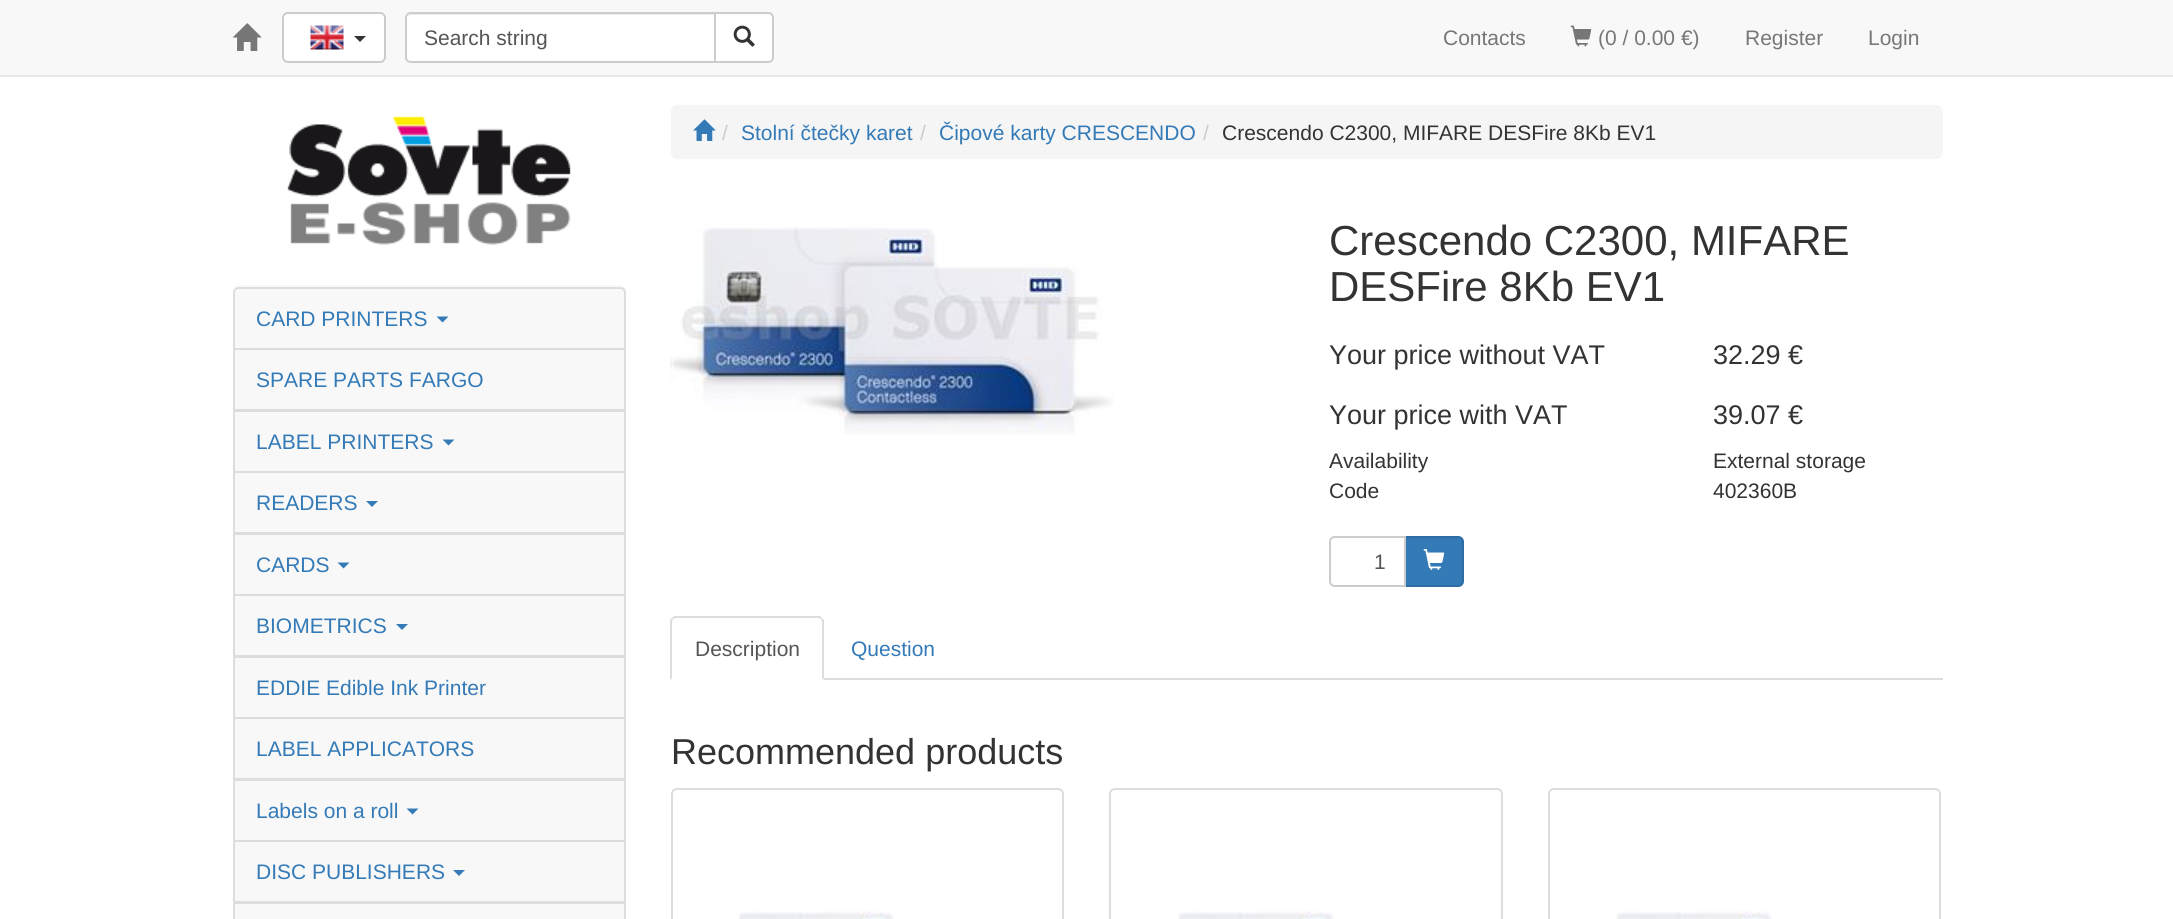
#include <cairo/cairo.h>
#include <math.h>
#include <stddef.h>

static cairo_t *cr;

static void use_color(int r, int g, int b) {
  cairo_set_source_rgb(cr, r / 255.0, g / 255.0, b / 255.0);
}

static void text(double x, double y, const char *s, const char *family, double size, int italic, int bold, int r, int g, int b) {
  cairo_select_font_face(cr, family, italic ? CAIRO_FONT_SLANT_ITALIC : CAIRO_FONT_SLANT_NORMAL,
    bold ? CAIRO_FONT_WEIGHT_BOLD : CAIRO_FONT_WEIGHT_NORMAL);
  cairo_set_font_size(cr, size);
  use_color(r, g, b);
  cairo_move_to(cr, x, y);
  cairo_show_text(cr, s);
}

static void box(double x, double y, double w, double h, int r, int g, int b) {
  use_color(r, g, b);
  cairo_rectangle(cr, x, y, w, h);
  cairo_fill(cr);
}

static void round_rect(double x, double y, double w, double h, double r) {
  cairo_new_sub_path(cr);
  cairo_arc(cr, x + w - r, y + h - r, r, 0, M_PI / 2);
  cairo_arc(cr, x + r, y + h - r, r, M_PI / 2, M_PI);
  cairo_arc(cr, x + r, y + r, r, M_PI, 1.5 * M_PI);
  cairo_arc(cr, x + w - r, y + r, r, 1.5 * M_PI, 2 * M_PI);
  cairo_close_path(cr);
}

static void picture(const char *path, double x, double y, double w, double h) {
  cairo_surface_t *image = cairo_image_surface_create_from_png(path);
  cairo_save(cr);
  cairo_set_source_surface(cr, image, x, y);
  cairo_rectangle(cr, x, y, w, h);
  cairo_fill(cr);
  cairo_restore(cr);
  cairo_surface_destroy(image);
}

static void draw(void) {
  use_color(255, 255, 255);
  cairo_paint(cr);
  box(0, 0, 2173, 75, 248, 248, 248);
  box(0, 75, 2173, 2, 231, 231, 231);
  picture("img_01.png", 232, 23, 30, 28);
  use_color(255, 255, 255);
  round_rect(283, 13, 102, 49, 5);
  cairo_fill_preserve(cr);
  use_color(204, 204, 204);
  cairo_stroke(cr);
  picture("img_02.png", 310, 25, 34, 25);
  use_color(51, 51, 51);
  cairo_new_path(cr);
  cairo_move_to(cr, 354, 36);
  cairo_line_to(cr, 366, 36);
  cairo_line_to(cr, 360, 42);
  cairo_close_path(cr);
  cairo_fill(cr);
  use_color(255, 255, 255);
  cairo_new_path(cr);
  cairo_move_to(cr, 715, 13);
  cairo_line_to(cr, 768, 13);
  cairo_curve_to(cr, 771, 13, 773, 15, 773, 18);
  cairo_line_to(cr, 773, 57);
  cairo_curve_to(cr, 773, 60, 771, 62, 768, 62);
  cairo_line_to(cr, 715, 62);
  cairo_close_path(cr);
  cairo_fill_preserve(cr);
  use_color(204, 204, 204);
  cairo_stroke(cr);
  use_color(255, 255, 255);
  cairo_new_path(cr);
  cairo_move_to(cr, 411, 12);
  cairo_line_to(cr, 716, 12);
  cairo_line_to(cr, 716, 63);
  cairo_line_to(cr, 411, 63);
  cairo_curve_to(cr, 407.5, 63, 405, 60.5, 405, 57);
  cairo_line_to(cr, 405, 18);
  cairo_curve_to(cr, 405, 14.5, 407.5, 12, 411, 12);
  cairo_close_path(cr);
  cairo_fill(cr);
  use_color(236, 236, 236);
  cairo_new_path(cr);
  cairo_move_to(cr, 411, 15);
  cairo_line_to(cr, 714, 15);
  cairo_line_to(cr, 714, 14);
  cairo_line_to(cr, 411, 14);
  cairo_line_to(cr, 409, 15);
  cairo_line_to(cr, 408, 16);
  cairo_close_path(cr);
  cairo_fill(cr);
  cairo_new_path(cr);
  cairo_move_to(cr, 411, 13);
  cairo_line_to(cr, 715, 13);
  cairo_line_to(cr, 715, 62);
  cairo_line_to(cr, 411, 62);
  cairo_curve_to(cr, 408, 62, 406, 60, 406, 57);
  cairo_line_to(cr, 406, 18);
  cairo_curve_to(cr, 406, 15, 408, 13, 411, 13);
  cairo_close_path(cr);
  use_color(204, 204, 204);
  cairo_stroke(cr);
  picture("img_03.png", 733, 25, 22, 22);
  picture("img_04.png", 1570, 25, 22, 22);
  picture("img_05.png", 287, 116, 284, 129);
  use_color(248, 248, 248);
  round_rect(233, 285, 393, 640, 6);
  cairo_fill(cr);
  cairo_new_path(cr);
  cairo_move_to(cr, 239, 288);
  cairo_line_to(cr, 620, 288);
  cairo_curve_to(cr, 623, 288, 625, 290, 625, 293);
  cairo_line_to(cr, 625, 349);
  cairo_line_to(cr, 234, 349);
  cairo_line_to(cr, 234, 293);
  cairo_curve_to(cr, 234, 290, 236, 288, 239, 288);
  cairo_close_path(cr);
  use_color(221, 221, 221);
  cairo_stroke(cr);
  use_color(51, 122, 183);
  cairo_new_path(cr);
  cairo_move_to(cr, 436.5, 316.5);
  cairo_line_to(cr, 448.5, 316.5);
  cairo_line_to(cr, 442.5, 322.5);
  cairo_close_path(cr);
  cairo_fill(cr);
  cairo_rectangle(cr, 234, 349, 391, 61);
  use_color(221, 221, 221);
  cairo_stroke(cr);
  cairo_rectangle(cr, 234, 411, 391, 61);
  cairo_stroke(cr);
  use_color(51, 122, 183);
  cairo_new_path(cr);
  cairo_move_to(cr, 442.5, 439.5);
  cairo_line_to(cr, 454.5, 439.5);
  cairo_line_to(cr, 448.5, 445.5);
  cairo_close_path(cr);
  cairo_fill(cr);
  cairo_rectangle(cr, 234, 472, 391, 61);
  use_color(221, 221, 221);
  cairo_stroke(cr);
  use_color(51, 122, 183);
  cairo_new_path(cr);
  cairo_move_to(cr, 366, 501);
  cairo_line_to(cr, 378, 501);
  cairo_line_to(cr, 372, 507);
  cairo_close_path(cr);
  cairo_fill(cr);
  cairo_rectangle(cr, 234, 534, 391, 61);
  use_color(221, 221, 221);
  cairo_stroke(cr);
  use_color(51, 122, 183);
  cairo_new_path(cr);
  cairo_move_to(cr, 337.5, 562.5);
  cairo_line_to(cr, 349.5, 562.5);
  cairo_line_to(cr, 343.5, 568.5);
  cairo_close_path(cr);
  cairo_fill(cr);
  cairo_rectangle(cr, 234, 595, 391, 61);
  use_color(221, 221, 221);
  cairo_stroke(cr);
  use_color(51, 122, 183);
  cairo_new_path(cr);
  cairo_move_to(cr, 396, 624);
  cairo_line_to(cr, 408, 624);
  cairo_line_to(cr, 402, 630);
  cairo_close_path(cr);
  cairo_fill(cr);
  cairo_rectangle(cr, 234, 657, 391, 61);
  use_color(221, 221, 221);
  cairo_stroke(cr);
  cairo_rectangle(cr, 234, 718, 391, 61);
  cairo_stroke(cr);
  cairo_rectangle(cr, 234, 780, 391, 61);
  cairo_stroke(cr);
  use_color(51, 122, 183);
  cairo_new_path(cr);
  cairo_move_to(cr, 406.5, 808.5);
  cairo_line_to(cr, 418.5, 808.5);
  cairo_line_to(cr, 412.5, 814.5);
  cairo_close_path(cr);
  cairo_fill(cr);
  cairo_rectangle(cr, 234, 841, 391, 61);
  use_color(221, 221, 221);
  cairo_stroke(cr);
  use_color(51, 122, 183);
  cairo_new_path(cr);
  cairo_move_to(cr, 453, 870);
  cairo_line_to(cr, 465, 870);
  cairo_line_to(cr, 459, 876);
  cairo_close_path(cr);
  cairo_fill(cr);
  cairo_rectangle(cr, 234, 903, 391, 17);
  use_color(221, 221, 221);
  cairo_stroke(cr);
  use_color(245, 245, 245);
  round_rect(671, 105, 1272, 54, 6);
  cairo_fill(cr);
  picture("img_06.png", 693, 119, 23, 22);
  picture("img_07.png", 670, 226, 444, 209);
  use_color(51, 122, 183);
  cairo_new_path(cr);
  cairo_move_to(cr, 1405, 537);
  cairo_line_to(cr, 1458, 537);
  cairo_curve_to(cr, 1461, 537, 1463, 539, 1463, 542);
  cairo_line_to(cr, 1463, 581);
  cairo_curve_to(cr, 1463, 584, 1461, 586, 1458, 586);
  cairo_line_to(cr, 1405, 586);
  cairo_close_path(cr);
  cairo_fill_preserve(cr);
  use_color(46, 109, 164);
  cairo_stroke(cr);
  use_color(255, 255, 255);
  cairo_new_path(cr);
  cairo_move_to(cr, 1335, 537);
  cairo_line_to(cr, 1405, 537);
  cairo_line_to(cr, 1405, 586);
  cairo_line_to(cr, 1335, 586);
  cairo_curve_to(cr, 1332, 586, 1330, 584, 1330, 581);
  cairo_line_to(cr, 1330, 542);
  cairo_curve_to(cr, 1330, 539, 1332, 537, 1335, 537);
  cairo_close_path(cr);
  cairo_fill_preserve(cr);
  use_color(204, 204, 204);
  cairo_stroke(cr);
  picture("img_08.png", 1423, 549, 22, 21);
  box(824, 678, 1119, 2, 221, 221, 221);
  cairo_new_path(cr);
  cairo_move_to(cr, 676, 618);
  cairo_line_to(cr, 673, 619);
  cairo_line_to(cr, 672, 618);
  cairo_line_to(cr, 674, 616);
  cairo_line_to(cr, 820, 616);
  cairo_line_to(cr, 822, 618);
  cairo_line_to(cr, 821, 619);
  cairo_line_to(cr, 818, 618);
  cairo_close_path(cr);
  cairo_fill(cr);
  cairo_new_path(cr);
  cairo_move_to(cr, 822, 618);
  cairo_line_to(cr, 824, 620);
  cairo_line_to(cr, 824, 680);
  cairo_line_to(cr, 822, 678);
  cairo_line_to(cr, 822, 622);
  cairo_line_to(cr, 821, 619);
  cairo_close_path(cr);
  cairo_fill(cr);
  cairo_new_path(cr);
  cairo_move_to(cr, 670, 680);
  cairo_line_to(cr, 670, 620);
  cairo_line_to(cr, 672, 618);
  cairo_line_to(cr, 673, 619);
  cairo_line_to(cr, 672, 622);
  cairo_line_to(cr, 672, 678);
  cairo_close_path(cr);
  cairo_fill(cr);
  round_rect(672, 789, 391, 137, 5);
  cairo_stroke(cr);
  picture("img_09.png", 738, 910, 156, 9);
  round_rect(1110, 789, 392, 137, 5);
  cairo_stroke(cr);
  picture("img_10.png", 1178, 910, 156, 9);
  round_rect(1549, 789, 391, 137, 5);
  cairo_stroke(cr);
  picture("img_11.png", 1616, 910, 156, 9);
  text(424, 45, "Search string", "Liberation Sans", 21, 0, 0, 85, 85, 85);
  text(1443, 45, "Contacts", "Liberation Sans", 21, 0, 0, 119, 119, 119);
  text(1598, 45, "(0 / 0.00 €)", "Liberation Sans", 21, 0, 0, 119, 119, 119);
  text(1745, 45, "Register", "Liberation Sans", 21, 0, 0, 119, 119, 119);
  text(1868, 45, "Login", "Liberation Sans", 21, 0, 0, 119, 119, 119);
  text(256, 326, "CARD PRINTERS", "Liberation Sans", 21, 0, 0, 51, 122, 183);
  text(256, 387, "SPARE PARTS FARGO", "Liberation Sans", 21, 0, 0, 51, 122, 183);
  text(256, 449, "LABEL PRINTERS", "Liberation Sans", 21, 0, 0, 51, 122, 183);
  text(256, 510, "READERS", "Liberation Sans", 21, 0, 0, 51, 122, 183);
  text(256, 572, "CARDS", "Liberation Sans", 21, 0, 0, 51, 122, 183);
  text(256, 633, "BIOMETRICS", "Liberation Sans", 21, 0, 0, 51, 122, 183);
  text(256, 695, "EDDIE Edible Ink Printer", "Liberation Sans", 21, 0, 0, 51, 122, 183);
  text(256, 756, "LABEL APPLICATORS", "Liberation Sans", 21, 0, 0, 51, 122, 183);
  text(256, 818, "Labels on a roll", "Liberation Sans", 21, 0, 0, 51, 122, 183);
  text(256, 879, "DISC PUBLISHERS", "Liberation Sans", 21, 0, 0, 51, 122, 183);
  text(722, 140, "/", "Liberation Sans", 21, 0, 0, 204, 204, 204);
  text(741, 140, "Stolní čtečky karet", "Liberation Sans", 21, 0, 0, 51, 122, 183);
  text(920, 140, "/", "Liberation Sans", 21, 0, 0, 204, 204, 204);
  text(939, 140, "Čipové karty CRESCENDO", "Liberation Sans", 21, 0, 0, 51, 122, 183);
  text(1203, 140, "/", "Liberation Sans", 21, 0, 0, 204, 204, 204);
  text(1222, 140, "Crescendo C2300, MIFARE DESFire 8Kb EV1", "Liberation Sans", 21, 0, 0, 51, 51, 51);
  text(1329, 255, "Crescendo C2300, MIFARE", "Liberation Sans", 42, 0, 0, 51, 51, 51);
  text(1329, 301, "DESFire 8Kb EV1", "Liberation Sans", 42, 0, 0, 51, 51, 51);
  text(1329, 364, "Your price without VAT", "Liberation Sans", 27, 0, 0, 51, 51, 51);
  text(1713, 364, "32.29 €", "Liberation Sans", 27, 0, 0, 51, 51, 51);
  text(1329, 424, "Your price with VAT", "Liberation Sans", 27, 0, 0, 51, 51, 51);
  text(1713, 424, "39.07 €", "Liberation Sans", 27, 0, 0, 51, 51, 51);
  text(1329, 468, "Availability", "Liberation Sans", 21, 0, 0, 51, 51, 51);
  text(1713, 468, "External storage", "Liberation Sans", 21, 0, 0, 51, 51, 51);
  text(1329, 498, "Code", "Liberation Sans", 21, 0, 0, 51, 51, 51);
  text(1713, 498, "402360B", "Liberation Sans", 21, 0, 0, 51, 51, 51);
  text(1374, 569, "1", "Liberation Sans", 21, 0, 0, 85, 85, 85);
  text(695, 656, "Description", "Liberation Sans", 21, 0, 0, 85, 85, 85);
  text(851, 656, "Question", "Liberation Sans", 21, 0, 0, 51, 122, 183);
  text(671, 764, "Recommended products", "Liberation Sans", 36, 0, 0, 51, 51, 51);
}

int main(void) {
  cairo_surface_t *surface = cairo_image_surface_create(CAIRO_FORMAT_RGB24, 2173, 919);
  cr = cairo_create(surface);
  cairo_font_options_t *options = cairo_font_options_create();
  cairo_font_options_set_hint_metrics(options, CAIRO_HINT_METRICS_OFF);
  cairo_font_options_set_hint_style(options, CAIRO_HINT_STYLE_NONE);
  cairo_set_font_options(cr, options);
  cairo_set_miter_limit(cr, 4);
  draw();
  cairo_surface_write_to_png(surface, "out.png");
  cairo_font_options_destroy(options);
  cairo_destroy(cr);
  cairo_surface_destroy(surface);
  return 0;
}
